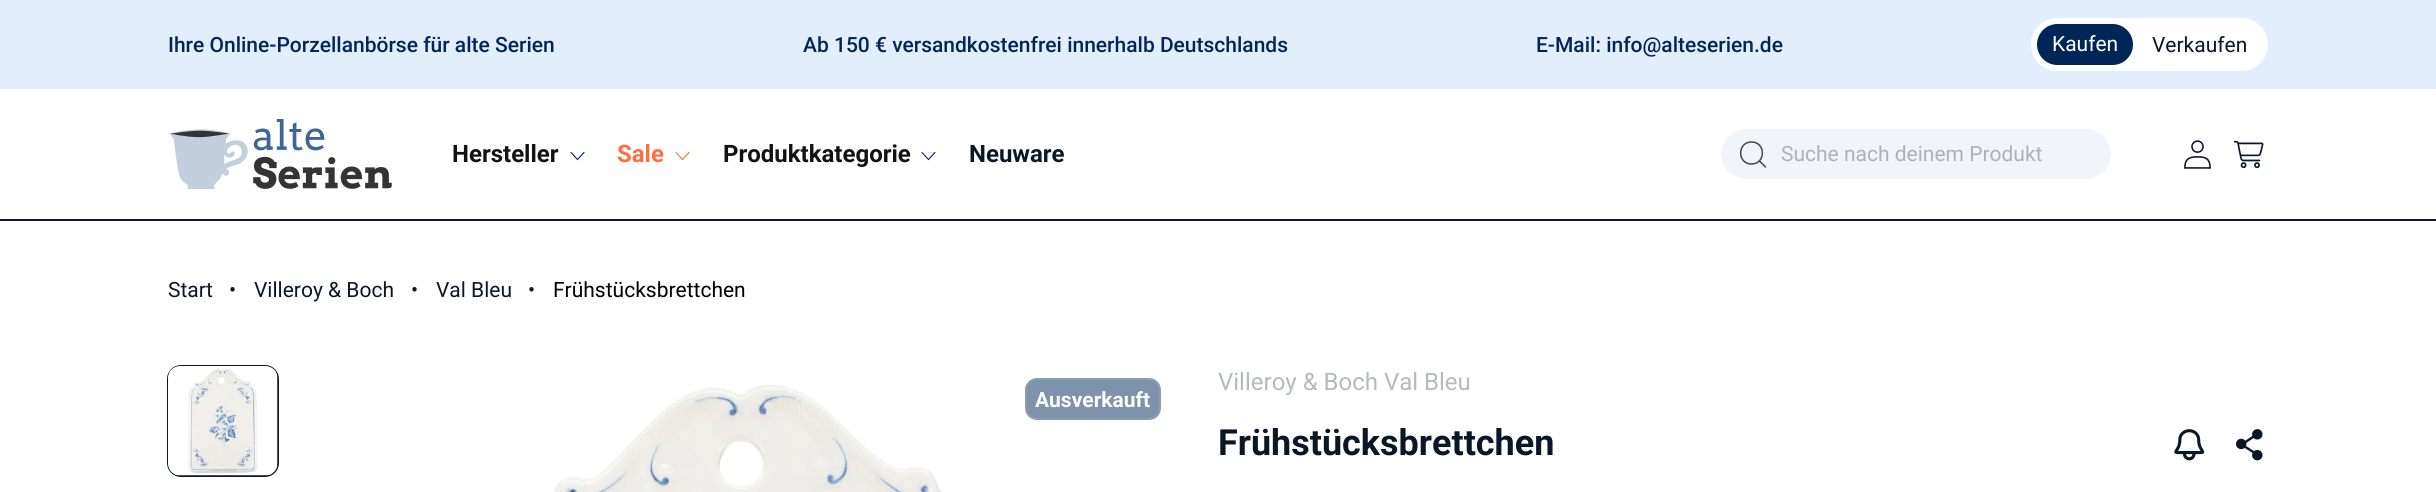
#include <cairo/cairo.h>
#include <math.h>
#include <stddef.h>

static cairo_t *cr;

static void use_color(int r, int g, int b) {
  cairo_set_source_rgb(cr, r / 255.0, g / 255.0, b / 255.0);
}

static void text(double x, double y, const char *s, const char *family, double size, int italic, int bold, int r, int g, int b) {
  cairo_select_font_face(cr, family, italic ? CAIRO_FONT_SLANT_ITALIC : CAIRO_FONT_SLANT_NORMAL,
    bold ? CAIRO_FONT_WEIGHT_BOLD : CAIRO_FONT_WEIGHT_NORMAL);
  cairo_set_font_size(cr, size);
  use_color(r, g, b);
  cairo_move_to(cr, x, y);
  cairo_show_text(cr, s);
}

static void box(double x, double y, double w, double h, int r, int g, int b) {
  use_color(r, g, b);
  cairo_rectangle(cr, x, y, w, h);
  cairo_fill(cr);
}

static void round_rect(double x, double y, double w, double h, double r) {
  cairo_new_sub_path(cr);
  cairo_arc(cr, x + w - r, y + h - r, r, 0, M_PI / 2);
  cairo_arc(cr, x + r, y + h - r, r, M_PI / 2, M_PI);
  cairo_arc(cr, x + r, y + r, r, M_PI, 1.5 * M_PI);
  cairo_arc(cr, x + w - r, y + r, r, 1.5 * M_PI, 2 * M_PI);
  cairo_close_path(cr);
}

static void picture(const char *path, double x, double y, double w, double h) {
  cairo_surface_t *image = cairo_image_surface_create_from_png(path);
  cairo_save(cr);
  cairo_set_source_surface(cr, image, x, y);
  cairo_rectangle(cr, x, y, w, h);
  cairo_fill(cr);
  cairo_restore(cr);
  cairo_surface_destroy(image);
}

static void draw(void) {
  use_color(255, 255, 255);
  cairo_paint(cr);
  box(0, 0, 2436, 89, 227, 238, 253);
  use_color(255, 255, 255);
  round_rect(2031, 18, 237, 53, 26.5);
  cairo_fill(cr);
  use_color(0, 38, 87);
  round_rect(2037, 24, 96, 41, 20.5);
  cairo_fill(cr);
  box(0, 219, 2436, 2, 10, 23, 40);
  picture("img_01.png", 169, 119, 223, 70);
  cairo_new_path(cr);
  cairo_move_to(cr, 584, 152.5);
  cairo_line_to(cr, 577.5, 159.5);
  cairo_line_to(cr, 571, 152.5);
  use_color(0, 38, 87);
  cairo_set_line_width(cr, 1.1);
  cairo_set_line_cap(cr, CAIRO_LINE_CAP_ROUND);
  cairo_stroke(cr);
  cairo_new_path(cr);
  cairo_move_to(cr, 689, 152.5);
  cairo_line_to(cr, 682.5, 159.5);
  cairo_line_to(cr, 676, 152.5);
  use_color(255, 110, 65);
  cairo_stroke(cr);
  cairo_new_path(cr);
  cairo_move_to(cr, 935, 152.5);
  cairo_line_to(cr, 928.5, 159.5);
  cairo_line_to(cr, 922, 152.5);
  use_color(0, 38, 87);
  cairo_stroke(cr);
  use_color(241, 244, 248);
  round_rect(1721, 129, 390, 50, 25);
  cairo_fill(cr);
  cairo_new_path(cr);
  cairo_move_to(cr, 1751.5, 164);
  cairo_curve_to(cr, 1766, 164, 1766, 142, 1751.5, 142);
  cairo_curve_to(cr, 1737, 142, 1737, 164, 1751.5, 164);
  cairo_close_path(cr);
  cairo_move_to(cr, 1765.5, 167);
  cairo_line_to(cr, 1759.5, 161);
  use_color(69, 69, 69);
  cairo_set_line_width(cr, 1.5);
  cairo_set_line_join(cr, CAIRO_LINE_JOIN_ROUND);
  cairo_stroke(cr);
  picture("img_02.png", 2184, 140, 27, 29);
  picture("img_03.png", 2234, 140, 30, 29);
  round_rect(168, 366, 110, 110, 13);
  use_color(10, 23, 40);
  cairo_set_line_width(cr, 2);
  cairo_set_line_cap(cr, CAIRO_LINE_CAP_BUTT);
  cairo_set_line_join(cr, CAIRO_LINE_JOIN_MITER);
  cairo_stroke(cr);
  picture("img_04.png", 168, 366, 110, 110);
  picture("img_05.png", 553, 384, 390, 108);
  use_color(127, 146, 171);
  round_rect(1025, 378, 136, 42, 12);
  cairo_fill(cr);
  round_rect(1026, 379, 134, 40, 11);
  cairo_set_source_rgba(cr, 1, 1, 1, 0.1);
  cairo_stroke(cr);
  picture("img_06.png", 2174, 429, 31, 32);
  picture("img_07.png", 2236, 429, 27, 32);
  text(168, 52, "Ihre Online-Porzellanbörse für alte Serien", "Roboto Medium", 21, 0, 0, 0, 38, 87);
  text(803, 52, "Ab 150 € versandkostenfrei innerhalb Deutschlands", "Roboto Medium", 21, 0, 0, 0, 38, 87);
  text(1536, 52, "E-Mail: info@alteserien.de", "Roboto Medium", 21, 0, 0, 0, 38, 87);
  text(2052, 51, "Kaufen", "Roboto", 21, 0, 0, 255, 255, 255);
  text(2152, 52, "Verkaufen", "Roboto", 21, 0, 0, 10, 23, 40);
  text(452, 162, "Hersteller", "Roboto", 24, 0, 1, 18, 18, 18);
  text(617, 162, "Sale", "Roboto", 24, 0, 1, 255, 110, 65);
  text(723, 162, "Produktkategorie", "Roboto", 24, 0, 1, 18, 18, 18);
  text(969, 162, "Neuware", "Roboto", 24, 0, 1, 10, 23, 40);
  text(1781, 161, "Suche nach deinem Produkt", "Roboto", 21, 0, 0, 172, 178, 186);
  text(168, 297, "Start", "Roboto", 21, 0, 0, 10, 23, 40);
  text(229, 297, "•", "Roboto", 21, 0, 0, 10, 23, 40);
  text(254, 297, "Villeroy & Boch", "Roboto", 21, 0, 0, 10, 23, 40);
  text(411, 297, "•", "Roboto", 21, 0, 0, 10, 23, 40);
  text(436, 297, "Val Bleu", "Roboto", 21, 0, 0, 10, 23, 40);
  text(528, 297, "•", "Roboto", 21, 0, 0, 10, 23, 40);
  text(553, 297, "Frühstücksbrettchen", "Roboto", 21, 0, 0, 0, 0, 0);
  text(1035, 407, "Ausverkauft", "Roboto", 21, 0, 1, 255, 255, 255);
  text(1218, 390, "Villeroy & Boch Val Bleu", "Roboto", 24, 0, 0, 182, 185, 191);
  text(1218, 455, "Frühstücksbrettchen", "Roboto", 36, 0, 1, 10, 23, 40);
}

int main(void) {
  cairo_surface_t *surface = cairo_image_surface_create(CAIRO_FORMAT_RGB24, 2436, 492);
  cr = cairo_create(surface);
  cairo_font_options_t *options = cairo_font_options_create();
  cairo_font_options_set_hint_metrics(options, CAIRO_HINT_METRICS_OFF);
  cairo_font_options_set_hint_style(options, CAIRO_HINT_STYLE_NONE);
  cairo_set_font_options(cr, options);
  cairo_set_miter_limit(cr, 4);
  draw();
  cairo_surface_write_to_png(surface, "out.png");
  cairo_font_options_destroy(options);
  cairo_destroy(cr);
  cairo_surface_destroy(surface);
  return 0;
}
